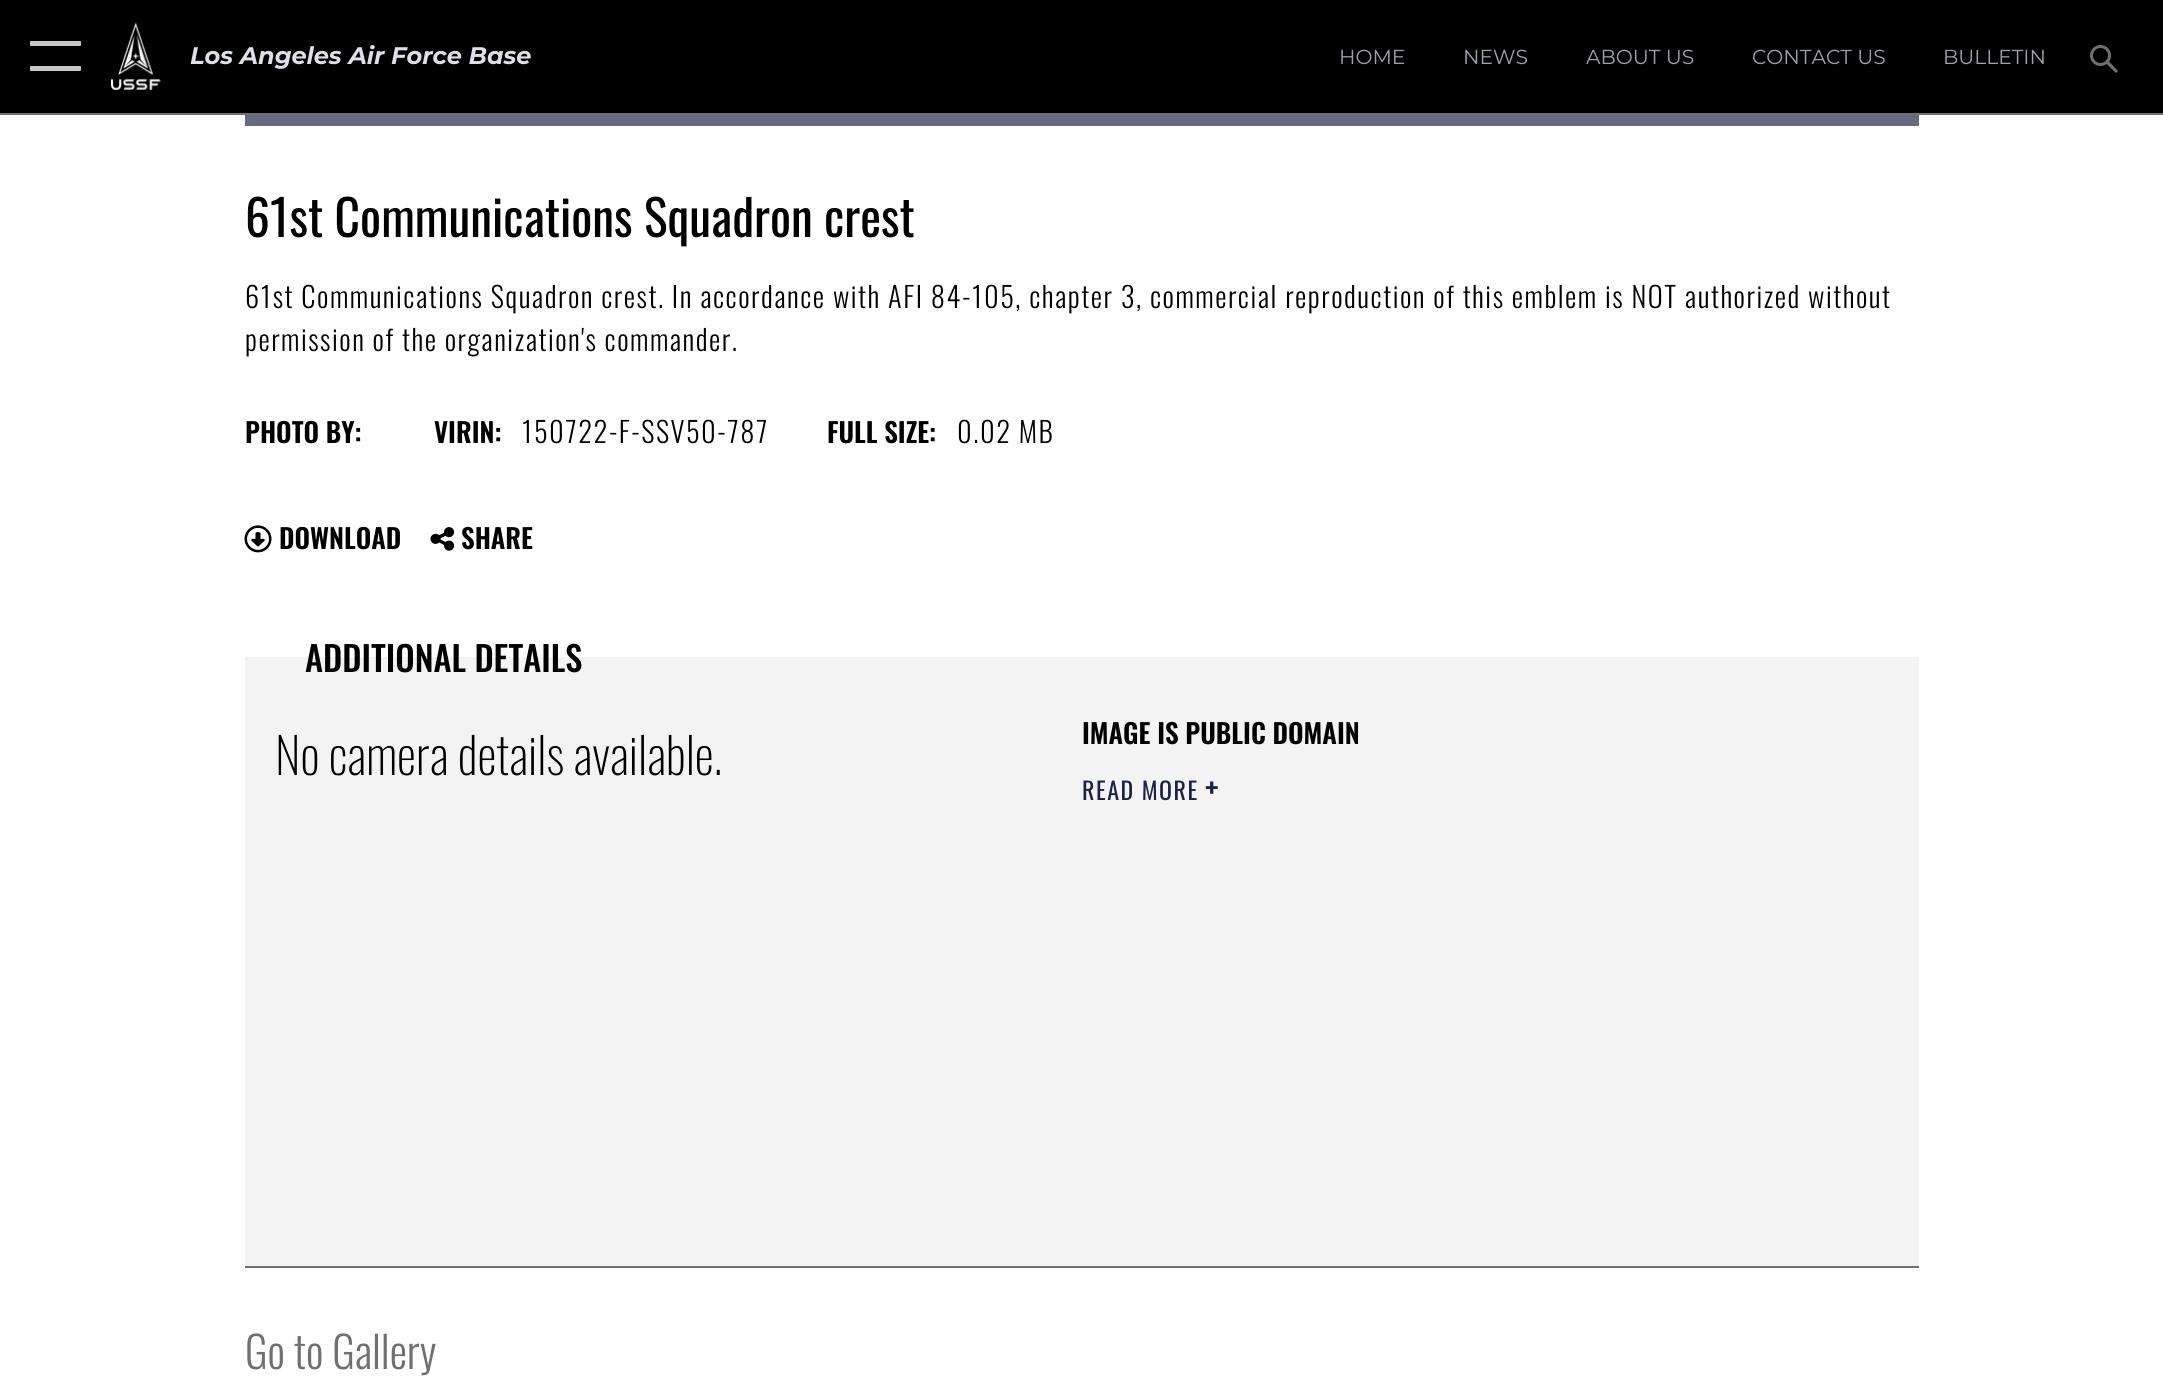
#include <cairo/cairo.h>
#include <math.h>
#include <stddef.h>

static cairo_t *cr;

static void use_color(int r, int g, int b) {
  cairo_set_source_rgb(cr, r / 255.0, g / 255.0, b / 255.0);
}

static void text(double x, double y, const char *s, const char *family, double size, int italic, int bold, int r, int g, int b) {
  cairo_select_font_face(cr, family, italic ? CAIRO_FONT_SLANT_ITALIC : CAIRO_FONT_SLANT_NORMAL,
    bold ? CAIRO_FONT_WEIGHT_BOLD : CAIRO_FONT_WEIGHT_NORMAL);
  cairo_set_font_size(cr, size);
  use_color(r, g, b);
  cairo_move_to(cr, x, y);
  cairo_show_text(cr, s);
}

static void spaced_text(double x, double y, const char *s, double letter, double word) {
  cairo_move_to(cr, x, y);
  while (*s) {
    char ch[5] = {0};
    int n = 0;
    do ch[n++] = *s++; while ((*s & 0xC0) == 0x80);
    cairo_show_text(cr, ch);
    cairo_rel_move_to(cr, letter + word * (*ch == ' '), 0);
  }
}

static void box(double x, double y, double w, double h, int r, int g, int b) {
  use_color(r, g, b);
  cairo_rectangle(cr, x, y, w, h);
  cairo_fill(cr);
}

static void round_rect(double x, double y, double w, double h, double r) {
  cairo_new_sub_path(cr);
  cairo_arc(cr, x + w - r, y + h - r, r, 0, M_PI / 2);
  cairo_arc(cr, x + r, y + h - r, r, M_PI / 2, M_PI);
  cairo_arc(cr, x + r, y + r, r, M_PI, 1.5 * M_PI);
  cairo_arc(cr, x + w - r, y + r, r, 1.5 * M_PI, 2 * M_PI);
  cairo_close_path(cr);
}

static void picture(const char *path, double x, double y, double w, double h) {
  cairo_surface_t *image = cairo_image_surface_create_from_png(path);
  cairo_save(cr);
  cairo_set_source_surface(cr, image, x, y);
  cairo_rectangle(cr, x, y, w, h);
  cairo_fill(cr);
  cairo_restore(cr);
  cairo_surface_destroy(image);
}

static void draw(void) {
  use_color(255, 255, 255);
  cairo_paint(cr);
  box(0, 0, 2163, 113, 0, 0, 0);
  box(0, 113, 2163, 2, 112, 112, 112);
  use_color(200, 200, 200);
  round_rect(30, 41, 51, 5, 1);
  cairo_fill(cr);
  round_rect(30, 66, 51, 5, 1);
  cairo_fill(cr);
  picture("img_01.png", 111, 22, 50, 68);
  cairo_arc(cr, 2100.5, 55.5, 9, 0, 2 * M_PI);
  use_color(112, 112, 112);
  cairo_set_line_width(cr, 3);
  cairo_stroke(cr);
  cairo_new_path(cr);
  cairo_move_to(cr, 2107.5, 60);
  cairo_line_to(cr, 2118, 71);
  cairo_line_to(cr, 2116, 73);
  cairo_line_to(cr, 2105, 62.5);
  cairo_close_path(cr);
  cairo_fill(cr);
  box(245, 115, 1674, 11, 101, 106, 130);
  picture("img_02.png", 244, 525, 28, 28);
  picture("img_03.png", 430, 527, 25, 24);
  box(245, 657, 1674, 609, 243, 243, 243);
  box(245, 1266, 1674, 2, 112, 112, 112);
  text(190, 64, "Los Angeles Air Force Base", "Montserrat", 24, 1, 1, 219, 224, 233);
  text(1339, 64, "HOME", "Montserrat", 20.25, 0, 0, 151, 163, 174);
  text(1463, 64, "NEWS", "Montserrat", 20.25, 0, 0, 151, 163, 174);
  text(1586, 64, "ABOUT US", "Montserrat", 20.25, 0, 0, 151, 163, 174);
  text(1752, 64, "CONTACT US", "Montserrat", 20.25, 0, 0, 151, 163, 174);
  text(1943, 64, "BULLETIN", "Montserrat", 20.25, 0, 0, 151, 163, 174);
  text(245, 237, "61st Communications Squadron crest", "Oswald", 49.5, 0, 0, 0, 0, 0);
  cairo_select_font_face(cr, "Oswald Light", CAIRO_FONT_SLANT_NORMAL, CAIRO_FONT_WEIGHT_NORMAL);
  cairo_set_font_size(cr, 28.5);
  spaced_text(245, 308, "61st Communications Squadron crest. In accordance with AFI 84-105, chapter 3, commercial reproduction of this emblem is NOT authorized without", 1.5, 0);
  spaced_text(245, 351, "permission of the organization's commander.", 1.5, 0);
  text(245, 443, "PHOTO BY:", "Oswald SemiBold", 27, 0, 0, 0, 0, 0);
  text(434, 443, "VIRIN:", "Oswald SemiBold", 27, 0, 0, 0, 0, 0);
  cairo_select_font_face(cr, "Oswald Light", CAIRO_FONT_SLANT_NORMAL, CAIRO_FONT_WEIGHT_NORMAL);
  cairo_set_font_size(cr, 28.5);
  spaced_text(522, 443, "150722-F-SSV50-787", 1.5, 0);
  text(827, 443, "FULL SIZE:", "Oswald SemiBold", 27, 0, 0, 0, 0, 0);
  cairo_select_font_face(cr, "Oswald Light", CAIRO_FONT_SLANT_NORMAL, CAIRO_FONT_WEIGHT_NORMAL);
  cairo_set_font_size(cr, 28.5);
  spaced_text(957, 443, "0.02 MB", 1.5, 0);
  text(279, 549, "DOWNLOAD", "Oswald SemiBold", 27, 0, 0, 0, 0, 0);
  text(461, 549, "SHARE", "Oswald SemiBold", 27, 0, 0, 0, 0, 0);
  text(305, 672, "ADDITIONAL DETAILS", "Oswald Medium", 34.5, 0, 0, 0, 0, 0);
  text(275, 775, "No camera details available.", "Oswald ExtraLight", 49.5, 0, 0, 0, 0, 0);
  text(1082, 744, "IMAGE IS PUBLIC DOMAIN", "Oswald SemiBold", 27, 0, 0, 0, 0, 0);
  cairo_select_font_face(cr, "Oswald", CAIRO_FONT_SLANT_NORMAL, CAIRO_FONT_WEIGHT_NORMAL);
  cairo_set_font_size(cr, 24);
  use_color(28, 35, 71);
  spaced_text(1082, 800, "READ MORE", 1.5, 0);
  cairo_select_font_face(cr, "Oswald", CAIRO_FONT_SLANT_NORMAL, CAIRO_FONT_WEIGHT_BOLD);
  cairo_set_font_size(cr, 30);
  spaced_text(1205, 800, "+", 1.5, 0);
  text(245, 1369, "Go to Gallery", "Oswald Light", 43.5, 0, 0, 112, 112, 112);
}

int main(void) {
  cairo_surface_t *surface = cairo_image_surface_create(CAIRO_FORMAT_RGB24, 2163, 1386);
  cr = cairo_create(surface);
  cairo_font_options_t *options = cairo_font_options_create();
  cairo_font_options_set_hint_metrics(options, CAIRO_HINT_METRICS_OFF);
  cairo_font_options_set_hint_style(options, CAIRO_HINT_STYLE_NONE);
  cairo_set_font_options(cr, options);
  cairo_set_miter_limit(cr, 4);
  draw();
  cairo_surface_write_to_png(surface, "out.png");
  cairo_font_options_destroy(options);
  cairo_destroy(cr);
  cairo_surface_destroy(surface);
  return 0;
}
